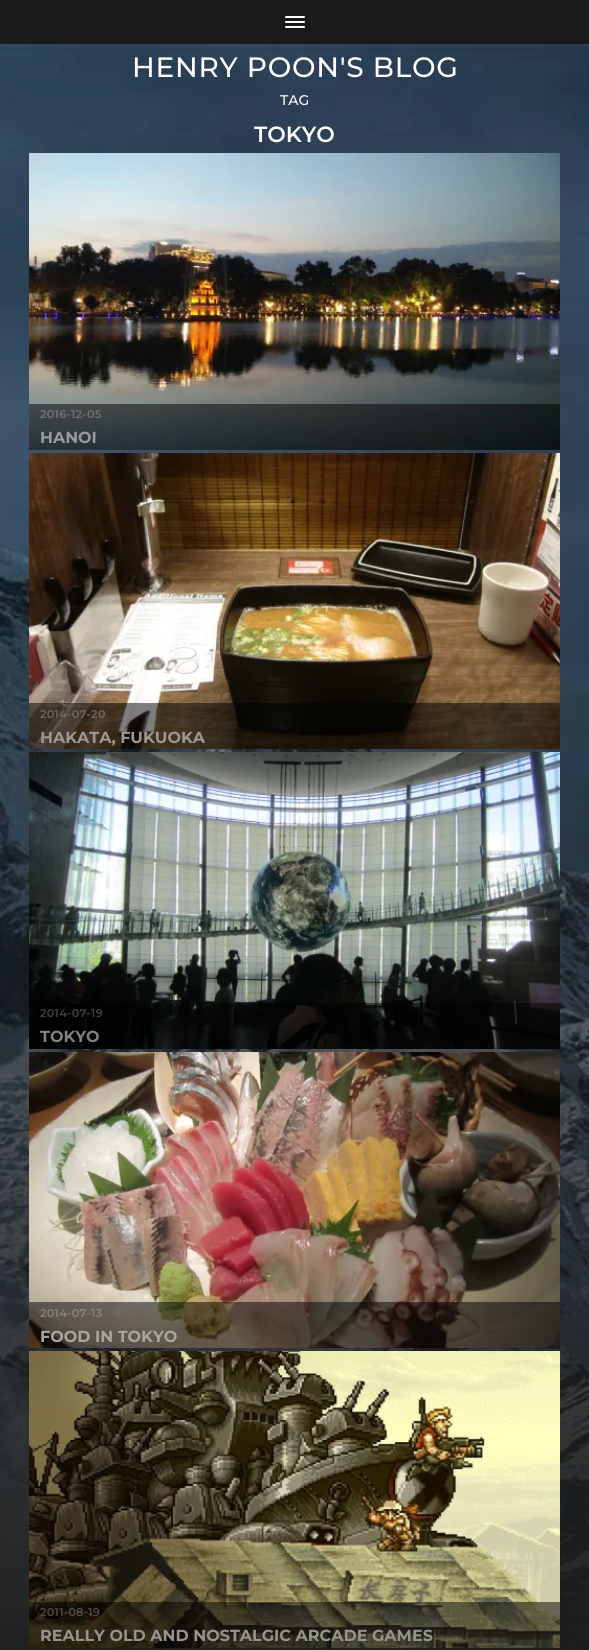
#include <cairo/cairo.h>
#include <math.h>
#include <stddef.h>

static cairo_t *cr;

static void use_color(int r, int g, int b) {
  cairo_set_source_rgb(cr, r / 255.0, g / 255.0, b / 255.0);
}

static void text(double x, double y, const char *s, const char *family, double size, int italic, int bold, int r, int g, int b) {
  cairo_select_font_face(cr, family, italic ? CAIRO_FONT_SLANT_ITALIC : CAIRO_FONT_SLANT_NORMAL,
    bold ? CAIRO_FONT_WEIGHT_BOLD : CAIRO_FONT_WEIGHT_NORMAL);
  cairo_set_font_size(cr, size);
  use_color(r, g, b);
  cairo_move_to(cr, x, y);
  cairo_show_text(cr, s);
}

static void spaced_text(double x, double y, const char *s, double letter, double word) {
  cairo_move_to(cr, x, y);
  while (*s) {
    char ch[5] = {0};
    int n = 0;
    do ch[n++] = *s++; while ((*s & 0xC0) == 0x80);
    cairo_show_text(cr, ch);
    cairo_rel_move_to(cr, letter + word * (*ch == ' '), 0);
  }
}

static void round_rect(double x, double y, double w, double h, double r) {
  cairo_new_sub_path(cr);
  cairo_arc(cr, x + w - r, y + h - r, r, 0, M_PI / 2);
  cairo_arc(cr, x + r, y + h - r, r, M_PI / 2, M_PI);
  cairo_arc(cr, x + r, y + r, r, M_PI, 1.5 * M_PI);
  cairo_arc(cr, x + w - r, y + r, r, 1.5 * M_PI, 2 * M_PI);
  cairo_close_path(cr);
}

static void picture(const char *path, double x, double y, double w, double h) {
  cairo_surface_t *image = cairo_image_surface_create_from_png(path);
  cairo_save(cr);
  cairo_set_source_surface(cr, image, x, y);
  cairo_rectangle(cr, x, y, w, h);
  cairo_fill(cr);
  cairo_restore(cr);
  cairo_surface_destroy(image);
}

static void draw(void) {
  use_color(29, 29, 29);
  cairo_paint(cr);
  use_color(26, 26, 26);
  round_rect(0, 0, 589, 44, 3);
  cairo_fill(cr);
  use_color(255, 255, 255);
  round_rect(285, 16, 20, 2, 1);
  cairo_fill(cr);
  round_rect(285, 21, 20, 2, 1);
  cairo_fill(cr);
  round_rect(285, 26, 20, 2, 1);
  cairo_fill(cr);
  picture("img_01.png", 0, 44, 589, 1606);
  picture("img_02.png", 29, 153, 531, 297);
  cairo_set_source_rgba(cr, 0, 0, 0, 0.5);
  cairo_rectangle(cr, 29, 404, 531, 46);
  cairo_fill(cr);
  picture("img_03.png", 29, 453, 531, 296);
  cairo_rectangle(cr, 29, 703, 531, 46);
  cairo_fill(cr);
  picture("img_04.png", 29, 752, 531, 297);
  cairo_rectangle(cr, 29, 1003, 531, 46);
  cairo_fill(cr);
  picture("img_05.png", 29, 1052, 531, 296);
  cairo_rectangle(cr, 29, 1302, 531, 46);
  cairo_fill(cr);
  picture("img_06.png", 29, 1351, 531, 297);
  cairo_rectangle(cr, 29, 1602, 531, 46);
  cairo_fill(cr);
  cairo_select_font_face(cr, "Montserrat Thin", CAIRO_FONT_SLANT_NORMAL, CAIRO_FONT_WEIGHT_NORMAL);
  cairo_set_font_size(cr, 28);
  use_color(255, 255, 255);
  spaced_text(132, 77, "HENRY POON'S BLOG", 0.75, 0);
  text(280, 105, "TAG", "Montserrat Thin", 14, 0, 0, 255, 255, 255);
  text(254, 142, "TOKYO", "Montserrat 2 Thin", 22, 0, 0, 255, 255, 255);
  cairo_set_font_size(cr, 11.25);
  use_color(110, 115, 116);
  spaced_text(40, 418, "2016-12-05", 0.25, 0);
  text(40, 443, "HANOI", "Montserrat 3 Thin", 16, 0, 0, 151, 155, 158);
  cairo_select_font_face(cr, "Montserrat 2 Thin", CAIRO_FONT_SLANT_NORMAL, CAIRO_FONT_WEIGHT_NORMAL);
  cairo_set_font_size(cr, 11.25);
  use_color(111, 103, 95);
  spaced_text(40, 718, "2014-07-20", 0.25, 0);
  text(40, 743, "HAKATA, FUKUOKA", "Montserrat 3 Thin", 16, 0, 0, 157, 151, 145);
  cairo_select_font_face(cr, "Montserrat 2 Thin", CAIRO_FONT_SLANT_NORMAL, CAIRO_FONT_WEIGHT_NORMAL);
  cairo_set_font_size(cr, 11.25);
  use_color(65, 66, 65);
  spaced_text(40, 1017, "2014-07-19", 0.25, 0);
  text(40, 1042, "TOKYO", "Montserrat 3 Thin", 16, 0, 0, 128, 129, 128);
  cairo_select_font_face(cr, "Montserrat 2 Thin", CAIRO_FONT_SLANT_NORMAL, CAIRO_FONT_WEIGHT_NORMAL);
  cairo_set_font_size(cr, 11.25);
  use_color(135, 130, 123);
  spaced_text(40, 1317, "2014-07-13", 0.25, 0);
  text(40, 1342, "FOOD IN TOKYO", "Montserrat 3 Thin", 16, 0, 0, 169, 166, 161);
  cairo_select_font_face(cr, "Montserrat 2 Thin", CAIRO_FONT_SLANT_NORMAL, CAIRO_FONT_WEIGHT_NORMAL);
  cairo_set_font_size(cr, 11.25);
  use_color(77, 74, 69);
  spaced_text(40, 1616, "2011-08-19", 0.25, 0);
  text(40, 1641, "REALLY OLD AND NOSTALGIC ARCADE GAMES", "Montserrat 3 Thin", 16, 0, 0, 148, 147, 140);
}

int main(void) {
  cairo_surface_t *surface = cairo_image_surface_create(CAIRO_FORMAT_RGB24, 589, 1650);
  cr = cairo_create(surface);
  cairo_font_options_t *options = cairo_font_options_create();
  cairo_font_options_set_hint_metrics(options, CAIRO_HINT_METRICS_OFF);
  cairo_font_options_set_hint_style(options, CAIRO_HINT_STYLE_NONE);
  cairo_set_font_options(cr, options);
  cairo_set_miter_limit(cr, 4);
  draw();
  cairo_surface_write_to_png(surface, "out.png");
  cairo_font_options_destroy(options);
  cairo_destroy(cr);
  cairo_surface_destroy(surface);
  return 0;
}
